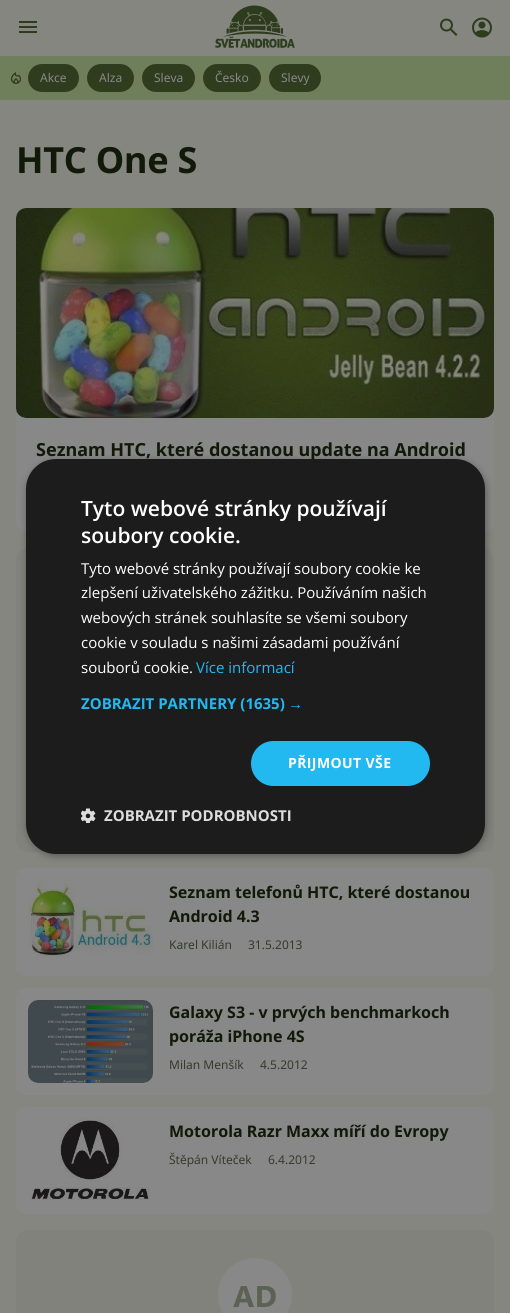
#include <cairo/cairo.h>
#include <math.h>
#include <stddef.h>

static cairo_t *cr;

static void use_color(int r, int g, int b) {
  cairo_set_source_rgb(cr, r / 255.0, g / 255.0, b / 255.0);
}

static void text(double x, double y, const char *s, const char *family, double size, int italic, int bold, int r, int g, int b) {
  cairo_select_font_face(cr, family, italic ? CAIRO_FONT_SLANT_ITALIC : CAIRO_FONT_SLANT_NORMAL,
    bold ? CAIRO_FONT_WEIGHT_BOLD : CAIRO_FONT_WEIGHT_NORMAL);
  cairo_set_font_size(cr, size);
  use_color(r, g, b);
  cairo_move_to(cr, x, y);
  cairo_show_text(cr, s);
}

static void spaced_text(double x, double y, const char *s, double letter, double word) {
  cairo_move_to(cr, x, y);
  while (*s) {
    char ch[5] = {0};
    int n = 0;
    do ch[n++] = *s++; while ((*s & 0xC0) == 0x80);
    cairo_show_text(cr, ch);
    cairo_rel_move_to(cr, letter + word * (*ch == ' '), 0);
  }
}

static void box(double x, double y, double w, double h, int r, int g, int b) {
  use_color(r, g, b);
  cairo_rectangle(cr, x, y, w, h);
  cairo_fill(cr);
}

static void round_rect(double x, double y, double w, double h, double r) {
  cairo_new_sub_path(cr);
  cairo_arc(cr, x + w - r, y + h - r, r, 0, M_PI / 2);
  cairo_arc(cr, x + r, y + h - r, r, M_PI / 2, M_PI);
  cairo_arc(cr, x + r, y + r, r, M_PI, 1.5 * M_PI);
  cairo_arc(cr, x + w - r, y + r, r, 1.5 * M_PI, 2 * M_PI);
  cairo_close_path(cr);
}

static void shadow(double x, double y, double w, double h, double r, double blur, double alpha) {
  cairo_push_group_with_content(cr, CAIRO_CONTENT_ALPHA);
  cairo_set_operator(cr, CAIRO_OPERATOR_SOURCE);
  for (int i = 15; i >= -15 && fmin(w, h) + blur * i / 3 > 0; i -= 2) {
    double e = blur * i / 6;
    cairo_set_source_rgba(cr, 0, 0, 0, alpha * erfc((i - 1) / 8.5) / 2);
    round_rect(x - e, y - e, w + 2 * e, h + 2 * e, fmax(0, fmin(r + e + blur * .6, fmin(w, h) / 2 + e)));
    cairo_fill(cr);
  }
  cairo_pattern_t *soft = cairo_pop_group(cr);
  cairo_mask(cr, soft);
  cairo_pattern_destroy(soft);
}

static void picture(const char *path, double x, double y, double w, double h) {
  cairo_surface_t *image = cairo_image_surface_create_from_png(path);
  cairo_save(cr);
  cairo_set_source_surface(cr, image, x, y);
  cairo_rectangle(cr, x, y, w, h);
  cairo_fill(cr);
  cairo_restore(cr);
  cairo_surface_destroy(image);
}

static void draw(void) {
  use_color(111, 127, 91);
  cairo_paint(cr);
  box(0, 0, 510, 56, 133, 134, 128);
  picture("img_01.png", 19, 21, 18, 12);
  picture("img_02.png", 215, 5, 80, 43);
  picture("img_03.png", 440, 18, 18, 18);
  picture("img_04.png", 472, 17, 20, 21);
  picture("img_05.png", 11, 72, 10, 12);
  use_color(47, 60, 30);
  round_rect(28, 64, 51, 28, 14);
  cairo_fill(cr);
  round_rect(87, 64, 47, 28, 14);
  cairo_fill(cr);
  round_rect(142, 64, 53, 28, 14);
  cairo_fill(cr);
  round_rect(203, 64, 58, 28, 14);
  cairo_fill(cr);
  round_rect(269, 64, 52, 28, 14);
  cairo_fill(cr);
  box(0, 100, 510, 1213, 133, 134, 128);
  use_color(136, 136, 136);
  round_rect(16, 208, 478, 324, 10);
  cairo_fill(cr);
  picture("img_06.png", 16, 208, 478, 210);
  use_color(129, 130, 124);
  round_rect(16, 548, 478, 304, 12);
  cairo_fill(cr);
  use_color(136, 136, 136);
  round_rect(16, 868, 478, 108, 10);
  cairo_fill(cr);
  picture("img_07.png", 28, 880, 125, 82);
  round_rect(16, 988, 478, 107, 10);
  cairo_fill(cr);
  picture("img_08.png", 28, 1000, 125, 83);
  round_rect(16, 1107, 478, 107, 10);
  cairo_fill(cr);
  picture("img_09.png", 29, 1119, 121, 81);
  use_color(129, 130, 124);
  round_rect(16, 1230, 478, 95, 12);
  cairo_fill(cr);
  picture("img_10.png", 218, 1258, 74, 55);
  use_color(0, 0, 0);
  shadow(27, 461, 459, 395, 30, 4, 0.35);
  text(40, 82, "Akce", "Noto Sans", 12, 0, 0, 136, 136, 136);
  text(99, 82, "Alza", "Noto Sans", 12, 0, 0, 136, 136, 136);
  text(154, 82, "Sleva", "Noto Sans", 12, 0, 0, 136, 136, 136);
  text(215, 82, "Česko", "Noto Sans", 12, 0, 0, 136, 136, 136);
  text(281, 82, "Slevy", "Noto Sans", 12, 0, 0, 136, 136, 136);
  cairo_select_font_face(cr, "Noto Sans", CAIRO_FONT_SLANT_NORMAL, CAIRO_FONT_WEIGHT_BOLD);
  cairo_set_font_size(cr, 36);
  use_color(17, 25, 9);
  spaced_text(16, 173, "HTC One S", -0.25, 0);
  text(36, 456, "Seznam HTC, které dostanou update na Android", "Noto Sans", 18, 0, 1, 17, 25, 9);
  text(169, 898, "Seznam telefonů HTC, které dostanou", "Noto Sans", 16, 0, 1, 17, 25, 9);
  text(169, 922, "Android 4.3", "Noto Sans", 16, 0, 1, 17, 25, 9);
  text(169, 949, "Karel Kilián", "Noto Sans", 12, 0, 0, 53, 58, 45);
  text(248, 949, "31.5.2013", "Noto Sans", 12, 0, 0, 53, 58, 45);
  text(169, 1018, "Galaxy S3 - v prvých benchmarkoch", "Noto Sans", 16, 0, 1, 17, 25, 9);
  text(169, 1042, "poráža iPhone 4S", "Noto Sans", 16, 0, 1, 17, 25, 9);
  text(169, 1069, "Milan Menšík", "Noto Sans", 12, 0, 0, 53, 58, 45);
  text(260, 1069, "4.5.2012", "Noto Sans", 12, 0, 0, 53, 58, 45);
  text(169, 1137, "Motorola Razr Maxx míří do Evropy", "Noto Sans", 16, 0, 1, 17, 25, 9);
  text(169, 1164, "Štěpán Víteček", "Noto Sans", 12, 0, 0, 53, 58, 45);
  text(268, 1164, "6.4.2012", "Noto Sans", 12, 0, 0, 53, 58, 45);
  use_color(28, 28, 28);
  round_rect(26, 459, 459, 395, 30);
  cairo_fill(cr);
  text(81, 516, "Tyto webové stránky používají", "Open Sans SemiBold", 21, 0, 0, 255, 255, 255);
  text(81, 543, "soubory cookie.", "Open Sans SemiBold", 21, 0, 0, 255, 255, 255);
  text(81, 574, "Tyto webové stránky používají soubory cookie ke", "Open Sans", 15, 0, 0, 255, 255, 255);
  text(81, 598, "zlepšení uživatelského zážitku. Používáním našich", "Open Sans", 15, 0, 0, 255, 255, 255);
  text(81, 623, "webových stránek souhlasíte se všemi soubory", "Open Sans", 15, 0, 0, 255, 255, 255);
  text(81, 648, "cookie v souladu s našimi zásadami používání", "Open Sans", 15, 0, 0, 255, 255, 255);
  text(81, 673, "souborů cookie.", "Open Sans", 15, 0, 0, 255, 255, 255);
  text(196, 673, "Více informací", "Open Sans", 15, 0, 0, 34, 184, 240);
  text(81, 709, "ZOBRAZIT PARTNERY (1635)", "Open Sans", 15, 0, 1, 34, 184, 240);
  text(288, 709, "→", "Liberation Sans", 15, 0, 1, 34, 184, 240);
  round_rect(251, 741, 179, 45, 22.5);
  cairo_fill(cr);
  cairo_select_font_face(cr, "Open Sans", CAIRO_FONT_SLANT_NORMAL, CAIRO_FONT_WEIGHT_BOLD);
  cairo_set_font_size(cr, 14);
  use_color(255, 255, 255);
  spaced_text(288, 768, "PŘIJMOUT VŠE", 0.4, 0);
  picture("img_11.png", 81, 808, 15, 15);
  text(104, 821, "ZOBRAZIT PODROBNOSTI", "Open Sans", 15, 0, 1, 221, 221, 221);
}

int main(void) {
  cairo_surface_t *surface = cairo_image_surface_create(CAIRO_FORMAT_RGB24, 510, 1313);
  cr = cairo_create(surface);
  cairo_font_options_t *options = cairo_font_options_create();
  cairo_font_options_set_hint_metrics(options, CAIRO_HINT_METRICS_OFF);
  cairo_font_options_set_hint_style(options, CAIRO_HINT_STYLE_NONE);
  cairo_set_font_options(cr, options);
  cairo_set_miter_limit(cr, 4);
  draw();
  cairo_surface_write_to_png(surface, "out.png");
  cairo_font_options_destroy(options);
  cairo_destroy(cr);
  cairo_surface_destroy(surface);
  return 0;
}
